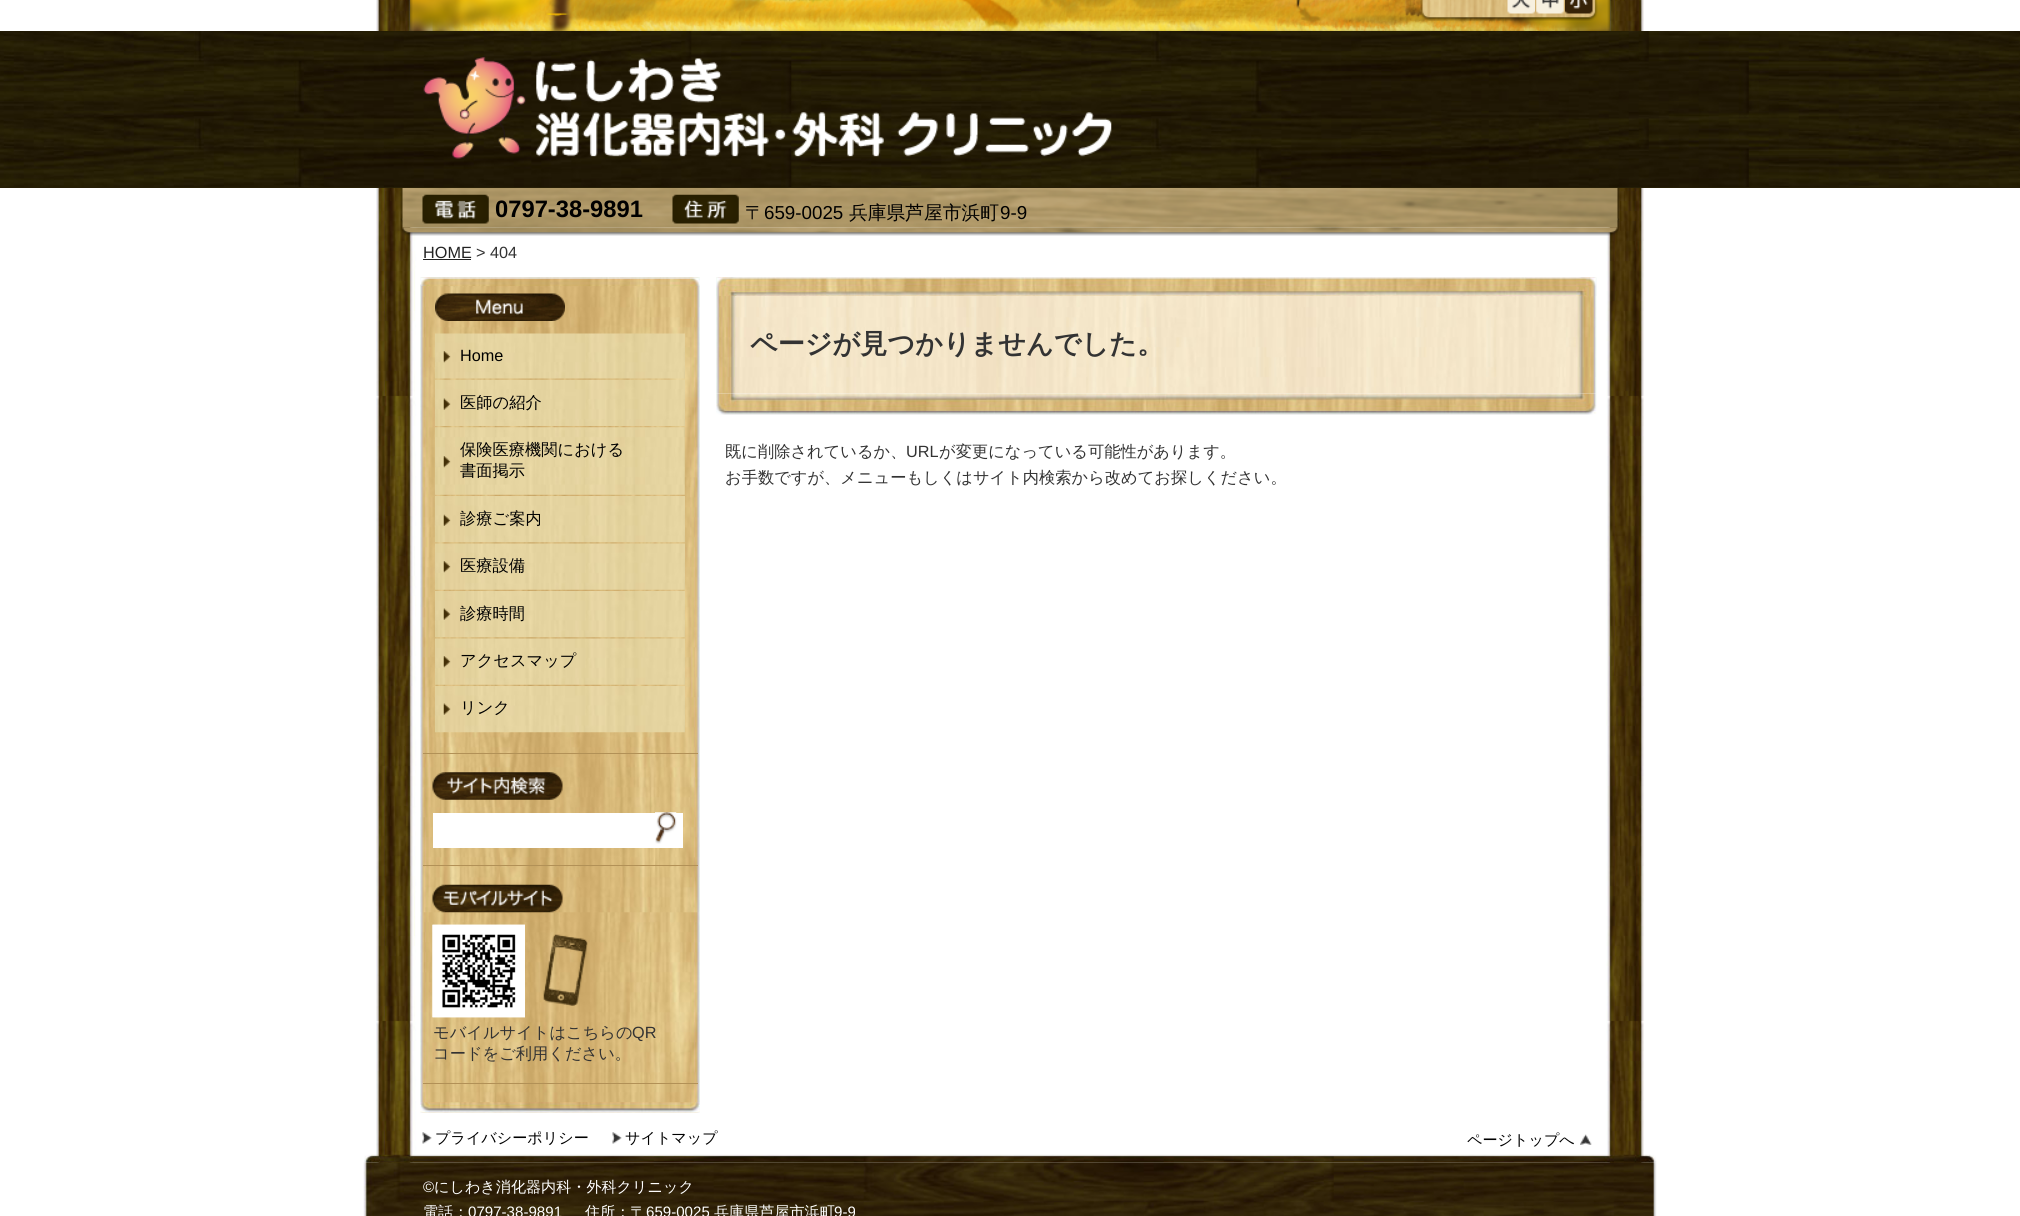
#include <cairo/cairo.h>
#include <math.h>
#include <stddef.h>

static cairo_t *cr;

static void use_color(int r, int g, int b) {
  cairo_set_source_rgb(cr, r / 255.0, g / 255.0, b / 255.0);
}

static void text(double x, double y, const char *s, const char *family, double size, int italic, int bold, int r, int g, int b) {
  cairo_select_font_face(cr, family, italic ? CAIRO_FONT_SLANT_ITALIC : CAIRO_FONT_SLANT_NORMAL,
    bold ? CAIRO_FONT_WEIGHT_BOLD : CAIRO_FONT_WEIGHT_NORMAL);
  cairo_set_font_size(cr, size);
  use_color(r, g, b);
  cairo_move_to(cr, x, y);
  cairo_show_text(cr, s);
}

static void box(double x, double y, double w, double h, int r, int g, int b) {
  use_color(r, g, b);
  cairo_rectangle(cr, x, y, w, h);
  cairo_fill(cr);
}

static void picture(const char *path, double x, double y, double w, double h) {
  cairo_surface_t *image = cairo_image_surface_create_from_png(path);
  cairo_save(cr);
  cairo_set_source_surface(cr, image, x, y);
  cairo_rectangle(cr, x, y, w, h);
  cairo_fill(cr);
  cairo_restore(cr);
  cairo_surface_destroy(image);
}

static void draw(void) {
  use_color(255, 255, 255);
  cairo_paint(cr);
  picture("img_01.png", 376, 0, 1268, 1163);
  picture("img_02.png", 410, 0, 1200, 31);
  box(0, 187, 2020, 1, 38, 30, 6);
  picture("img_03.png", 0, 31, 2020, 156);
  picture("img_04.png", 1420, 0, 178, 21);
  picture("img_05.png", 1507, 0, 28, 14);
  picture("img_06.png", 1536, 0, 28, 14);
  picture("img_07.png", 1565, 0, 28, 14);
  picture("img_08.png", 423, 56, 689, 103);
  picture("img_09.png", 400, 188, 1220, 40);
  picture("img_10.png", 422, 194, 67, 30);
  picture("img_11.png", 672, 194, 67, 30);
  picture("img_12.png", 400, 227, 1220, 9);
  box(423, 259, 48, 1, 34, 34, 34);
  picture("img_13.png", 420, 277, 280, 836);
  picture("img_14.png", 420, 277, 280, 836);
  box(423, 753, 275, 1, 178, 145, 87);
  picture("img_15.png", 435, 293, 130, 28);
  picture("img_16.png", 435, 333, 250, 46);
  picture("img_17.png", 443, 351, 8, 12);
  picture("img_18.png", 435, 379, 250, 47);
  picture("img_19.png", 443, 398, 8, 12);
  picture("img_20.png", 435, 427, 250, 68);
  picture("img_21.png", 443, 456, 8, 12);
  picture("img_22.png", 435, 496, 250, 47);
  picture("img_23.png", 443, 514, 8, 12);
  picture("img_24.png", 435, 543, 250, 47);
  picture("img_25.png", 443, 561, 8, 12);
  picture("img_26.png", 435, 591, 250, 47);
  picture("img_27.png", 443, 608, 8, 12);
  picture("img_28.png", 435, 638, 250, 47);
  picture("img_25.png", 443, 656, 8, 12);
  picture("img_29.png", 435, 686, 250, 47);
  picture("img_27.png", 443, 703, 8, 12);
  picture("img_30.png", 432, 772, 131, 28);
  box(433, 813, 250, 35, 255, 255, 255);
  picture("img_31.png", 655, 812, 22, 32);
  box(423, 865, 275, 1, 178, 145, 87);
  picture("img_32.png", 432, 884, 131, 29);
  picture("img_33.png", 432, 924, 156, 94);
  picture("img_34.png", 432, 924, 93, 94);
  box(423, 1083, 275, 1, 178, 145, 87);
  picture("img_35.png", 716, 277, 881, 117);
  picture("img_36.png", 716, 277, 881, 19);
  picture("img_37.png", 716, 393, 881, 22);
  picture("img_38.png", 422, 1132, 10, 12);
  picture("img_38.png", 612, 1132, 10, 12);
  picture("img_39.png", 1580, 1134, 12, 11);
  picture("img_40.png", 363, 1162, 1294, 54);
  picture("img_41.png", 364, 1154, 1293, 9);
  text(495, 217, "0797-38-9891", "Liberation Sans", 23.75, 0, 1, 0, 0, 0);
  text(745, 219, "〒", "WenQuanYi Zen Hei Medium", 18.75, 0, 0, 0, 0, 0);
  text(764, 219, "659-0025", "Liberation Sans", 18.75, 0, 0, 0, 0, 0);
  text(849, 219, "兵庫県芦屋市浜町", "WenQuanYi Zen Hei Medium", 18.75, 0, 0, 0, 0, 0);
  text(1000, 219, "9-9", "Liberation Sans", 18.75, 0, 0, 0, 0, 0);
  text(423, 258, "HOME", "Liberation Sans", 16.25, 0, 0, 34, 34, 34);
  text(476, 258, "> 404", "Liberation Sans", 16.25, 0, 0, 51, 51, 51);
  text(460, 361, "Home", "Liberation Sans", 16.25, 0, 0, 0, 0, 0);
  text(460, 408, "医師の紹介", "WenQuanYi Zen Hei Medium", 16.25, 0, 0, 0, 0, 0);
  text(460, 455, "保険医療機関における", "WenQuanYi Zen Hei Medium", 16.25, 0, 0, 0, 0, 0);
  text(460, 476, "書面掲示", "WenQuanYi Zen Hei Medium", 16.25, 0, 0, 0, 0, 0);
  text(460, 524, "診療ご案内", "WenQuanYi Zen Hei Medium", 16.25, 0, 0, 0, 0, 0);
  text(460, 571, "医療設備", "WenQuanYi Zen Hei Medium", 16.25, 0, 0, 0, 0, 0);
  text(460, 619, "診療時間", "WenQuanYi Zen Hei Medium", 16.25, 0, 0, 0, 0, 0);
  text(460, 666, "アクセスマップ", "WenQuanYi Zen Hei Medium", 16.25, 0, 0, 0, 0, 0);
  text(460, 713, "リンク", "WenQuanYi Zen Hei Medium", 16.25, 0, 0, 0, 0, 0);
  text(433, 1038, "モバイルサイトはこちらの", "WenQuanYi Zen Hei Medium", 16.25, 0, 0, 51, 51, 51);
  text(632, 1038, "QR", "Liberation Sans", 16.25, 0, 0, 51, 51, 51);
  text(433, 1059, "コードをご利用ください。", "WenQuanYi Zen Hei Medium", 16.25, 0, 0, 51, 51, 51);
  text(750, 353, "ページが見つかりませんでした。", "WenQuanYi Zen Hei", 27.1, 0, 1, 51, 51, 51);
  text(725, 457, "既に削除されているか、", "WenQuanYi Zen Hei Medium", 16.25, 0, 0, 51, 51, 51);
  text(906, 457, "URL", "Liberation Sans", 16.25, 0, 0, 51, 51, 51);
  text(939, 457, "が変更になっている可能性があります。", "WenQuanYi Zen Hei Medium", 16.25, 0, 0, 51, 51, 51);
  text(725, 483, "お手数ですが、メニューもしくはサイト内検索から改めてお探しください。", "WenQuanYi Zen Hei Medium", 16.25, 0, 0, 51, 51, 51);
  text(435, 1143, "プライバシーポリシー", "WenQuanYi Zen Hei Medium", 15.1, 0, 0, 0, 0, 0);
  text(625, 1143, "サイトマップ", "WenQuanYi Zen Hei Medium", 15.1, 0, 0, 0, 0, 0);
  text(1467, 1145, "ページトップへ", "WenQuanYi Zen Hei Medium", 15.1, 0, 0, 0, 0, 0);
  text(423, 1192, "©", "Liberation Sans", 15.1, 0, 0, 255, 255, 255);
  text(434, 1192, "にしわき消化器内科・外科クリニック", "WenQuanYi Zen Hei Medium", 15.1, 0, 0, 255, 255, 255);
  text(423, 1217, "電話：", "WenQuanYi Zen Hei Medium", 15.1, 0, 0, 255, 255, 255);
  text(468, 1217, "0797-38-9891", "Liberation Sans", 15.1, 0, 0, 255, 255, 255);
  text(585, 1217, "住所：〒", "WenQuanYi Zen Hei Medium", 15.1, 0, 0, 255, 255, 255);
  text(646, 1217, "659-0025", "Liberation Sans", 15.1, 0, 0, 255, 255, 255);
  text(714, 1217, "兵庫県芦屋市浜町", "WenQuanYi Zen Hei Medium", 15.1, 0, 0, 255, 255, 255);
  text(834, 1217, "9-9", "Liberation Sans", 15.1, 0, 0, 255, 255, 255);
}

int main(void) {
  cairo_surface_t *surface = cairo_image_surface_create(CAIRO_FORMAT_RGB24, 2020, 1216);
  cr = cairo_create(surface);
  cairo_font_options_t *options = cairo_font_options_create();
  cairo_font_options_set_hint_metrics(options, CAIRO_HINT_METRICS_OFF);
  cairo_font_options_set_hint_style(options, CAIRO_HINT_STYLE_NONE);
  cairo_set_font_options(cr, options);
  cairo_set_miter_limit(cr, 4);
  draw();
  cairo_surface_write_to_png(surface, "out.png");
  cairo_font_options_destroy(options);
  cairo_destroy(cr);
  cairo_surface_destroy(surface);
  return 0;
}
